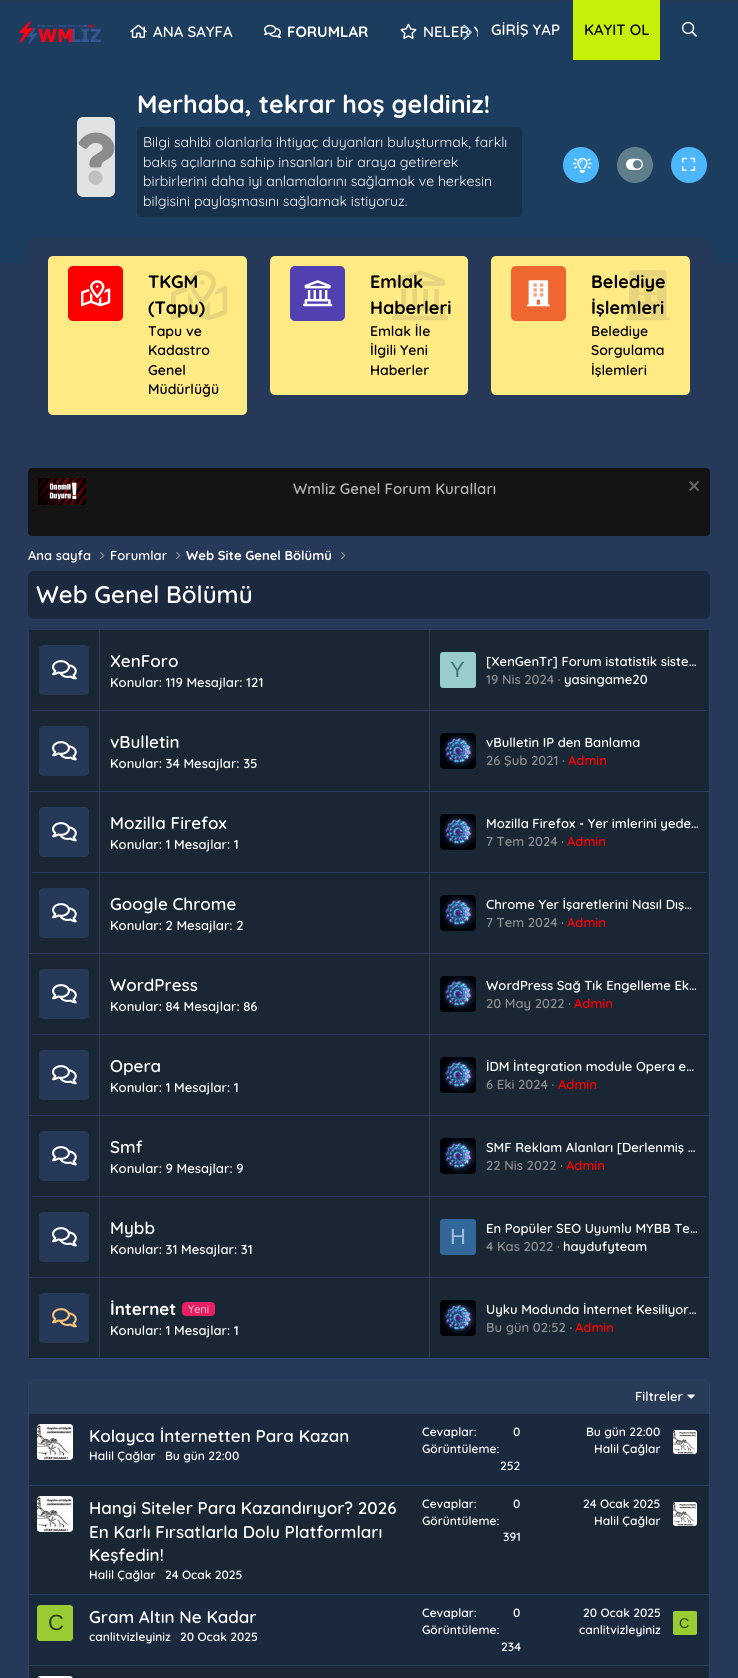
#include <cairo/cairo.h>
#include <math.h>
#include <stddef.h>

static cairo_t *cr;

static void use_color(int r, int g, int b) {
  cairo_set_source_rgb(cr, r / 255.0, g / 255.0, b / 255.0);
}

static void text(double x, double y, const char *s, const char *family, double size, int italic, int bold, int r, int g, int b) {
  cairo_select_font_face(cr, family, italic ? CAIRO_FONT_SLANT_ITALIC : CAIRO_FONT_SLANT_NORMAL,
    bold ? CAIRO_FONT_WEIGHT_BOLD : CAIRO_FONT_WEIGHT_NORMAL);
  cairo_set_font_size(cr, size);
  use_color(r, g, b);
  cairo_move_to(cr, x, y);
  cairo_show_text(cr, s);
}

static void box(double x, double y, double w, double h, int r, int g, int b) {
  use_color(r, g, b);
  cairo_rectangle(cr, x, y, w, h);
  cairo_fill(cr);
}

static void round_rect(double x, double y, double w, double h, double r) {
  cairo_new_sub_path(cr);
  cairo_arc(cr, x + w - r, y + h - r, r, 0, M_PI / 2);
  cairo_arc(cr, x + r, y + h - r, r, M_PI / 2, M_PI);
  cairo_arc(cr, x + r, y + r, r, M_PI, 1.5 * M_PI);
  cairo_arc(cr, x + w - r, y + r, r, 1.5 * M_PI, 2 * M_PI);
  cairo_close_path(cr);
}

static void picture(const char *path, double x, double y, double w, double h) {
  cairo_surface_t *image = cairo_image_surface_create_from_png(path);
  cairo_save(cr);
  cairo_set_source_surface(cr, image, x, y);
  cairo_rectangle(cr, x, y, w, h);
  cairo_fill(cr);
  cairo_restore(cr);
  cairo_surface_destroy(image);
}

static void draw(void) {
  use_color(38, 57, 88);
  cairo_paint(cr);
  box(0, 2, 738, 261, 29, 61, 95);
  picture("img_01.png", 18, 21, 83, 24);
  picture("img_03.png", 130, 24, 17, 14);
  picture("img_04.png", 264, 24, 17, 14);
  picture("img_05.png", 400, 23, 17, 16);
  box(573, 0, 87, 60, 199, 240, 8);
  picture("img_06.png", 682, 21, 15, 16);
  use_color(226, 226, 226);
  round_rect(77, 117, 38, 80, 6);
  cairo_fill(cr);
  picture("img_07.png", 78, 132, 37, 36);
  use_color(192, 192, 192);
  cairo_new_path(cr);
  cairo_move_to(cr, 90.5, 172.5);
  cairo_curve_to(cr, 97, 166, 107, 176, 100.5, 182.5);
  cairo_curve_to(cr, 94, 189, 84, 179, 90.5, 172.5);
  cairo_close_path(cr);
  cairo_fill(cr);
  use_color(23, 49, 76);
  round_rect(137, 127, 385, 90, 4);
  cairo_fill(cr);
  use_color(77, 183, 254);
  cairo_arc(cr, 581, 165, 18, 0, 2 * M_PI);
  cairo_fill(cr);
  picture("img_08.png", 573, 157, 19, 16);
  use_color(96, 125, 139);
  cairo_arc(cr, 635, 165, 18, 0, 2 * M_PI);
  cairo_fill(cr);
  picture("img_09.png", 626, 158, 17, 12);
  use_color(77, 183, 254);
  cairo_arc(cr, 689, 165, 18, 0, 2 * M_PI);
  cairo_fill(cr);
  picture("img_10.png", 682, 157, 14, 14);
  use_color(38, 57, 88);
  cairo_new_path(cr);
  cairo_move_to(cr, 37, 238);
  cairo_line_to(cr, 701, 238);
  cairo_curve_to(cr, 706.5, 238, 711, 242.5, 711, 248);
  cairo_line_to(cr, 711, 433);
  cairo_line_to(cr, 27, 433);
  cairo_line_to(cr, 27, 248);
  cairo_curve_to(cr, 27, 242.5, 31.5, 238, 37, 238);
  cairo_close_path(cr);
  cairo_fill(cr);
  use_color(255, 234, 132);
  round_rect(48, 256, 199, 159, 5);
  cairo_fill(cr);
  use_color(255, 0, 0);
  round_rect(68, 266, 55, 55, 5);
  cairo_fill(cr);
  picture("img_11.png", 81, 280, 30, 27);
  picture("img_12.png", 171, 270, 57, 51);
  use_color(255, 234, 132);
  round_rect(270, 256, 198, 139, 5);
  cairo_fill(cr);
  use_color(81, 64, 177);
  round_rect(290, 266, 55, 55, 5);
  cairo_fill(cr);
  picture("img_13.png", 303, 280, 30, 27);
  picture("img_14.png", 392, 270, 57, 51);
  use_color(255, 234, 132);
  round_rect(491, 256, 199, 139, 5);
  cairo_fill(cr);
  use_color(239, 102, 49);
  round_rect(511, 266, 55, 55, 5);
  cairo_fill(cr);
  picture("img_15.png", 527, 280, 23, 27);
  picture("img_16.png", 533, 283, 11, 14);
  picture("img_17.png", 626, 270, 44, 51);
  picture("img_18.png", 639, 277, 18, 24);
  use_color(20, 20, 20);
  round_rect(28, 468, 682, 68, 4);
  cairo_fill(cr);
  picture("img_19.png", 38, 478, 48, 27);
  picture("img_20.png", 689, 481, 10, 10);
  picture("img_21.png", 100, 552, 5, 8);
  picture("img_21.png", 176, 552, 5, 8);
  picture("img_21.png", 341, 552, 5, 8);
  use_color(27, 41, 63);
  round_rect(28, 571, 682, 48, 6);
  cairo_fill(cr);
  round_rect(28, 629, 682, 730, 4);
  cairo_fill(cr);
  cairo_new_path(cr);
  cairo_move_to(cr, 29.5, 630.5);
  cairo_line_to(cr, 32, 629.5);
  cairo_line_to(cr, 706, 629.5);
  cairo_line_to(cr, 708.5, 630.5);
  use_color(43, 58, 93);
  cairo_set_line_width(cr, 1);
  cairo_stroke(cr);
  cairo_new_path(cr);
  cairo_move_to(cr, 708.5, 630.5);
  cairo_curve_to(cr, 709, 631, 709.5, 632, 709.5, 633);
  cairo_line_to(cr, 709.5, 1355);
  cairo_curve_to(cr, 709.5, 1356, 709, 1357, 708.5, 1357.5);
  use_color(48, 64, 103);
  cairo_stroke(cr);
  cairo_new_path(cr);
  cairo_move_to(cr, 708.5, 1357.5);
  cairo_line_to(cr, 706, 1358.5);
  cairo_line_to(cr, 32, 1358.5);
  cairo_line_to(cr, 29.5, 1357.5);
  use_color(56, 75, 120);
  cairo_stroke(cr);
  cairo_new_path(cr);
  cairo_move_to(cr, 29.5, 1357.5);
  cairo_curve_to(cr, 29, 1357, 28.5, 1356, 28.5, 1355);
  cairo_line_to(cr, 28.5, 633);
  cairo_curve_to(cr, 28.5, 632, 29, 631, 29.5, 630.5);
  use_color(48, 64, 103);
  cairo_stroke(cr);
  box(29, 630, 680, 80, 25, 39, 52);
  use_color(38, 57, 88);
  round_rect(39, 645, 50, 50, 4);
  cairo_fill(cr);
  picture("img_22.png", 52, 660, 25, 20);
  box(99, 630, 1, 80, 43, 58, 93);
  box(429, 630, 1, 80, 43, 58, 93);
  use_color(153, 204, 204);
  round_rect(440, 652, 36, 36, 3);
  cairo_fill(cr);
  box(32, 710, 674, 1, 43, 58, 93);
  box(29, 711, 680, 80, 25, 39, 52);
  use_color(38, 57, 88);
  round_rect(39, 726, 50, 50, 4);
  cairo_fill(cr);
  picture("img_22.png", 52, 741, 25, 20);
  box(99, 711, 1, 80, 43, 58, 93);
  box(429, 711, 1, 80, 43, 58, 93);
  use_color(67, 67, 67);
  round_rect(440, 733, 36, 36, 3);
  cairo_fill(cr);
  picture("img_23.png", 440, 733, 36, 36);
  box(29, 791, 680, 1, 43, 58, 93);
  box(29, 792, 680, 80, 25, 39, 52);
  use_color(38, 57, 88);
  round_rect(39, 807, 50, 50, 4);
  cairo_fill(cr);
  picture("img_22.png", 52, 822, 25, 20);
  box(99, 792, 1, 80, 43, 58, 93);
  box(429, 792, 1, 80, 43, 58, 93);
  use_color(67, 67, 67);
  round_rect(440, 814, 36, 36, 3);
  cairo_fill(cr);
  picture("img_23.png", 440, 814, 36, 36);
  box(32, 872, 674, 1, 43, 58, 93);
  box(29, 873, 680, 80, 25, 39, 52);
  use_color(38, 57, 88);
  round_rect(39, 888, 50, 50, 4);
  cairo_fill(cr);
  picture("img_22.png", 52, 903, 25, 20);
  box(99, 873, 1, 80, 43, 58, 93);
  box(429, 873, 1, 80, 43, 58, 93);
  use_color(67, 67, 67);
  round_rect(440, 895, 36, 36, 3);
  cairo_fill(cr);
  picture("img_23.png", 440, 895, 36, 36);
  box(29, 953, 680, 1, 43, 58, 93);
  box(29, 954, 680, 80, 25, 39, 52);
  use_color(38, 57, 88);
  round_rect(39, 969, 50, 50, 4);
  cairo_fill(cr);
  picture("img_22.png", 52, 984, 25, 20);
  box(99, 954, 1, 80, 43, 58, 93);
  box(429, 954, 1, 80, 43, 58, 93);
  use_color(67, 67, 67);
  round_rect(440, 976, 36, 36, 3);
  cairo_fill(cr);
  picture("img_23.png", 440, 976, 36, 36);
  box(32, 1034, 674, 1, 43, 58, 93);
  box(29, 1035, 680, 80, 25, 39, 52);
  use_color(38, 57, 88);
  round_rect(39, 1050, 50, 50, 4);
  cairo_fill(cr);
  picture("img_22.png", 52, 1065, 25, 20);
  box(99, 1035, 1, 80, 43, 58, 93);
  box(429, 1035, 1, 80, 43, 58, 93);
  use_color(67, 67, 67);
  round_rect(440, 1057, 36, 36, 3);
  cairo_fill(cr);
  picture("img_23.png", 440, 1057, 36, 36);
  box(29, 1115, 680, 1, 43, 58, 93);
  box(29, 1116, 680, 80, 25, 39, 52);
  use_color(38, 57, 88);
  round_rect(39, 1131, 50, 50, 4);
  cairo_fill(cr);
  picture("img_22.png", 52, 1146, 25, 20);
  box(99, 1116, 1, 80, 43, 58, 93);
  box(429, 1116, 1, 80, 43, 58, 93);
  use_color(67, 67, 67);
  round_rect(440, 1138, 36, 36, 3);
  cairo_fill(cr);
  picture("img_23.png", 440, 1138, 36, 36);
  box(32, 1196, 674, 1, 43, 58, 93);
  box(29, 1197, 680, 80, 25, 39, 52);
  use_color(38, 57, 88);
  round_rect(39, 1212, 50, 50, 4);
  cairo_fill(cr);
  picture("img_22.png", 52, 1227, 25, 20);
  box(99, 1197, 1, 80, 43, 58, 93);
  box(429, 1197, 1, 80, 43, 58, 93);
  use_color(51, 102, 153);
  round_rect(440, 1219, 36, 36, 3);
  cairo_fill(cr);
  box(29, 1277, 680, 1, 43, 58, 93);
  box(29, 1278, 680, 80, 25, 39, 52);
  use_color(38, 57, 88);
  round_rect(39, 1293, 50, 50, 4);
  cairo_fill(cr);
  picture("img_24.png", 52, 1308, 25, 20);
  box(99, 1278, 1, 80, 43, 58, 93);
  use_color(233, 30, 99);
  round_rect(182, 1302, 33, 14, 4);
  cairo_fill(cr);
  box(429, 1278, 1, 80, 43, 58, 93);
  use_color(67, 67, 67);
  round_rect(440, 1300, 36, 36, 3);
  cairo_fill(cr);
  picture("img_23.png", 440, 1300, 36, 36);
  use_color(27, 41, 63);
  round_rect(28, 1379, 682, 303, 4);
  cairo_fill(cr);
  cairo_new_path(cr);
  cairo_move_to(cr, 29.5, 1380.5);
  cairo_line_to(cr, 32, 1379.5);
  cairo_line_to(cr, 706, 1379.5);
  cairo_line_to(cr, 708.5, 1380.5);
  use_color(43, 58, 93);
  cairo_stroke(cr);
  cairo_new_path(cr);
  cairo_move_to(cr, 708.5, 1380.5);
  cairo_line_to(cr, 709.5, 1383);
  cairo_line_to(cr, 709.5, 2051);
  cairo_line_to(cr, 708.5, 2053.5);
  use_color(48, 64, 103);
  cairo_stroke(cr);
  cairo_new_path(cr);
  cairo_move_to(cr, 29.5, 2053.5);
  cairo_line_to(cr, 28.5, 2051);
  cairo_line_to(cr, 28.5, 1383);
  cairo_line_to(cr, 29.5, 1380.5);
  cairo_stroke(cr);
  use_color(40, 60, 90);
  cairo_new_path(cr);
  cairo_move_to(cr, 32, 1380);
  cairo_line_to(cr, 706, 1380);
  cairo_curve_to(cr, 707.5, 1380, 709, 1381.5, 709, 1383);
  cairo_line_to(cr, 709, 1414);
  cairo_line_to(cr, 29, 1414);
  cairo_line_to(cr, 29, 1383);
  cairo_curve_to(cr, 29, 1381.5, 30.5, 1380, 32, 1380);
  cairo_close_path(cr);
  cairo_fill(cr);
  picture("img_25.png", 687, 1394, 8, 5);
  use_color(67, 67, 67);
  round_rect(37, 1424, 36, 36, 3);
  cairo_fill(cr);
  picture("img_26.png", 37, 1424, 36, 36);
  round_rect(673, 1430, 24, 24, 2);
  cairo_fill(cr);
  picture("img_27.png", 673, 1430, 24, 24);
  box(29, 1486, 680, 108, 25, 39, 52);
  box(29, 1485, 680, 1, 40, 60, 90);
  use_color(67, 67, 67);
  round_rect(37, 1496, 36, 36, 3);
  cairo_fill(cr);
  picture("img_28.png", 37, 1496, 36, 36);
  round_rect(673, 1502, 24, 24, 2);
  cairo_fill(cr);
  picture("img_29.png", 673, 1502, 24, 24);
  box(29, 1594, 680, 1, 40, 60, 90);
  use_color(153, 204, 51);
  round_rect(37, 1605, 36, 36, 3);
  cairo_fill(cr);
  round_rect(673, 1611, 24, 24, 2);
  cairo_fill(cr);
  box(29, 1666, 680, 12, 25, 39, 52);
  box(29, 1665, 680, 1, 40, 60, 90);
  use_color(67, 67, 67);
  round_rect(37, 1676, 36, 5, 3);
  cairo_fill(cr);
  picture("img_30.png", 37, 1676, 36, 2);
  text(153, 37, "ANA SAYFA", "Quicksand SemiBold", 15, 0, 0, 255, 255, 255);
  text(287, 37, "FORUMLAR", "Quicksand Light", 15, 0, 0, 255, 255, 255);
  cairo_save(cr);
  cairo_rectangle(cr, 104, 2, 374, 60);
  cairo_clip(cr);
  text(423, 37, "NELER Y", "Quicksand SemiBold", 15, 0, 0, 255, 255, 255);
  cairo_restore(cr);
  picture("img_02.png", 463, 24, 9, 16);
  text(491, 35, "GİRİŞ YAP", "Quicksand SemiBold", 15, 0, 0, 255, 255, 255);
  text(584, 35, "KAYIT OL", "Quicksand SemiBold", 15, 0, 0, 7, 10, 17);
  text(137, 113, "Merhaba, tekrar hoş geldiniz!", "Quicksand Light", 25, 0, 0, 255, 255, 255);
  text(143, 147, "Bilgi sahibi olanlarla ihtiyaç duyanları buluşturmak, farklı", "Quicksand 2 Light", 14, 0, 0, 255, 255, 255);
  text(143, 167, "bakış açılarına sahip insanları bir araya getirerek", "Quicksand 2 Light", 14, 0, 0, 255, 255, 255);
  text(143, 186, "birbirlerini daha iyi anlamalarını sağlamak ve herkesin", "Quicksand 2 Light", 14, 0, 0, 255, 255, 255);
  text(143, 206, "bilgisini paylaşmasını sağlamak istiyoruz.", "Quicksand 2 Light", 14, 0, 0, 255, 255, 255);
  text(148, 288, "TKGM", "Quicksand Light", 18, 0, 0, 0, 0, 0);
  text(148, 314, "(Tapu)", "Quicksand Light", 18, 0, 0, 0, 0, 0);
  text(148, 336, "Tapu ve", "Quicksand SemiBold", 14, 0, 0, 0, 0, 0);
  text(148, 355, "Kadastro", "Quicksand SemiBold", 14, 0, 0, 0, 0, 0);
  text(148, 375, "Genel", "Quicksand SemiBold", 14, 0, 0, 0, 0, 0);
  text(148, 394, "Müdürlüğü", "Quicksand SemiBold", 14, 0, 0, 0, 0, 0);
  text(370, 288, "Emlak", "Quicksand Light", 18, 0, 0, 0, 0, 0);
  text(370, 314, "Haberleri", "Quicksand Light", 18, 0, 0, 0, 0, 0);
  text(370, 336, "Emlak İle", "Quicksand SemiBold", 14, 0, 0, 0, 0, 0);
  text(370, 355, "İlgili Yeni", "Quicksand SemiBold", 14, 0, 0, 0, 0, 0);
  text(370, 375, "Haberler", "Quicksand SemiBold", 14, 0, 0, 0, 0, 0);
  text(591, 288, "Belediye", "Quicksand Light", 18, 0, 0, 0, 0, 0);
  text(591, 314, "İşlemleri", "Quicksand Light", 18, 0, 0, 0, 0, 0);
  text(591, 336, "Belediye", "Quicksand SemiBold", 14, 0, 0, 0, 0, 0);
  text(591, 355, "Sorgulama", "Quicksand SemiBold", 14, 0, 0, 0, 0, 0);
  text(591, 375, "İşlemleri", "Quicksand SemiBold", 14, 0, 0, 0, 0, 0);
  text(293, 494, "Wmliz Genel Forum Kuralları", "Quicksand SemiBold", 15, 0, 0, 180, 180, 180);
  text(28, 560, "Ana sayfa", "Quicksand SemiBold", 13, 0, 0, 255, 255, 255);
  text(110, 560, "Forumlar", "Quicksand SemiBold", 13, 0, 0, 255, 255, 255);
  text(186, 560, "Web Site Genel Bölümü", "Quicksand Light", 13, 0, 0, 255, 255, 255);
  text(36, 603, "Web Genel Bölümü", "Quicksand SemiBold", 24, 0, 0, 255, 255, 255);
  text(110, 667, "XenForo", "Quicksand SemiBold", 17, 0, 0, 255, 255, 255);
  text(110, 687, "Konular: 119 Mesajlar: 121", "Quicksand SemiBold", 13, 0, 0, 255, 255, 255);
  text(450, 677, "Y", "Liberation Sans", 22, 0, 0, 60, 119, 119);
  text(486, 666, "[XenGenTr] Forum istatistik siste…", "Quicksand SemiBold", 13, 0, 0, 255, 255, 255);
  text(486, 684, "19 Nis 2024 ·", "Quicksand SemiBold", 13, 0, 0, 140, 140, 140);
  text(564, 684, "yasingame20", "Quicksand SemiBold", 13, 0, 0, 255, 255, 255);
  text(110, 748, "vBulletin", "Quicksand SemiBold", 17, 0, 0, 255, 255, 255);
  text(110, 768, "Konular: 34 Mesajlar: 35", "Quicksand SemiBold", 13, 0, 0, 255, 255, 255);
  text(486, 747, "vBulletin IP den Banlama", "Quicksand SemiBold", 13, 0, 0, 255, 255, 255);
  text(486, 765, "26 Şub 2021 ·", "Quicksand SemiBold", 13, 0, 0, 140, 140, 140);
  text(568, 765, "Admin", "Quicksand SemiBold", 13, 0, 0, 255, 0, 0);
  text(110, 829, "Mozilla Firefox", "Quicksand SemiBold", 17, 0, 0, 255, 255, 255);
  text(110, 849, "Konular: 1 Mesajlar: 1", "Quicksand SemiBold", 13, 0, 0, 255, 255, 255);
  text(486, 828, "Mozilla Firefox - Yer imlerini yede…", "Quicksand SemiBold", 13, 0, 0, 255, 255, 255);
  text(486, 846, "7 Tem 2024 ·", "Quicksand SemiBold", 13, 0, 0, 140, 140, 140);
  text(567, 846, "Admin", "Quicksand SemiBold", 13, 0, 0, 255, 0, 0);
  text(110, 910, "Google Chrome", "Quicksand SemiBold", 17, 0, 0, 255, 255, 255);
  text(110, 930, "Konular: 2 Mesajlar: 2", "Quicksand SemiBold", 13, 0, 0, 255, 255, 255);
  text(486, 909, "Chrome Yer İşaretlerini Nasıl Dış…", "Quicksand SemiBold", 13, 0, 0, 255, 255, 255);
  text(486, 927, "7 Tem 2024 ·", "Quicksand SemiBold", 13, 0, 0, 140, 140, 140);
  text(567, 927, "Admin", "Quicksand SemiBold", 13, 0, 0, 255, 0, 0);
  text(110, 991, "WordPress", "Quicksand SemiBold", 17, 0, 0, 255, 255, 255);
  text(110, 1011, "Konular: 84 Mesajlar: 86", "Quicksand SemiBold", 13, 0, 0, 255, 255, 255);
  text(486, 990, "WordPress Sağ Tık Engelleme Ek…", "Quicksand SemiBold", 13, 0, 0, 255, 255, 255);
  text(486, 1008, "20 May 2022 ·", "Quicksand SemiBold", 13, 0, 0, 140, 140, 140);
  text(574, 1008, "Admin", "Quicksand SemiBold", 13, 0, 0, 255, 0, 0);
  text(110, 1072, "Opera", "Quicksand SemiBold", 17, 0, 0, 255, 255, 255);
  text(110, 1092, "Konular: 1 Mesajlar: 1", "Quicksand SemiBold", 13, 0, 0, 255, 255, 255);
  text(486, 1071, "İDM İntegration module Opera e…", "Quicksand SemiBold", 13, 0, 0, 255, 255, 255);
  text(486, 1089, "6 Eki 2024 ·", "Quicksand SemiBold", 13, 0, 0, 140, 140, 140);
  text(558, 1089, "Admin", "Quicksand SemiBold", 13, 0, 0, 255, 0, 0);
  text(110, 1153, "Smf", "Quicksand SemiBold", 17, 0, 0, 255, 255, 255);
  text(110, 1173, "Konular: 9 Mesajlar: 9", "Quicksand SemiBold", 13, 0, 0, 255, 255, 255);
  text(486, 1152, "SMF Reklam Alanları [Derlenmiş …", "Quicksand SemiBold", 13, 0, 0, 255, 255, 255);
  text(486, 1170, "22 Nis 2022 ·", "Quicksand SemiBold", 13, 0, 0, 140, 140, 140);
  text(566, 1170, "Admin", "Quicksand SemiBold", 13, 0, 0, 255, 0, 0);
  text(110, 1234, "Mybb", "Quicksand SemiBold", 17, 0, 0, 255, 255, 255);
  text(110, 1254, "Konular: 31 Mesajlar: 31", "Quicksand SemiBold", 13, 0, 0, 255, 255, 255);
  text(450, 1244, "H", "Liberation Sans", 22, 0, 0, 159, 191, 223);
  text(486, 1233, "En Popüler SEO Uyumlu MYBB Te…", "Quicksand SemiBold", 13, 0, 0, 255, 255, 255);
  text(486, 1251, "4 Kas 2022 ·", "Quicksand SemiBold", 13, 0, 0, 140, 140, 140);
  text(563, 1251, "haydufyteam", "Quicksand SemiBold", 13, 0, 0, 255, 255, 255);
  text(110, 1315, "İnternet", "Quicksand Light", 17, 0, 0, 255, 255, 255);
  text(188, 1313, "Yeni", "Quicksand 2 Light", 11, 0, 0, 255, 255, 255);
  text(110, 1335, "Konular: 1 Mesajlar: 1", "Quicksand SemiBold", 13, 0, 0, 255, 255, 255);
  text(486, 1314, "Uyku Modunda İnternet Kesiliyor…", "Quicksand SemiBold", 13, 0, 0, 255, 255, 255);
  text(486, 1332, "Bu gün 02:52 ·", "Quicksand SemiBold", 13, 0, 0, 140, 140, 140);
  text(575, 1332, "Admin", "Quicksand SemiBold", 13, 0, 0, 255, 0, 0);
  text(635, 1401, "Filtreler", "Quicksand SemiBold", 13, 0, 0, 255, 255, 255);
  text(89, 1442, "Kolayca İnternetten Para Kazan", "Quicksand SemiBold", 17, 0, 0, 255, 255, 255);
  text(89, 1460, "Halil Çağlar", "Quicksand SemiBold", 12, 0, 0, 255, 255, 255);
  text(159, 1460, "·", "Quicksand SemiBold", 12, 0, 0, 80, 80, 80);
  text(165, 1460, "Bu gün 22:00", "Quicksand SemiBold", 12, 0, 0, 255, 255, 255);
  text(422, 1436, "Cevaplar:", "Quicksand SemiBold", 12, 0, 0, 255, 255, 255);
  text(513, 1436, "0", "Quicksand SemiBold", 12, 0, 0, 255, 255, 255);
  text(422, 1453, "Görüntüleme:", "Quicksand SemiBold", 12, 0, 0, 255, 255, 255);
  text(500, 1470, "252", "Quicksand SemiBold", 12, 0, 0, 255, 255, 255);
  text(586, 1436, "Bu gün 22:00", "Quicksand SemiBold", 12, 0, 0, 255, 255, 255);
  text(594, 1453, "Halil Çağlar", "Quicksand SemiBold", 12, 0, 0, 255, 255, 255);
  text(89, 1514, "Hangi Siteler Para Kazandırıyor? 2026", "Quicksand SemiBold", 17, 0, 0, 255, 255, 255);
  text(89, 1538, "En Karlı Fırsatlarla Dolu Platformları", "Quicksand SemiBold", 17, 0, 0, 255, 255, 255);
  text(89, 1561, "Keşfedin!", "Quicksand SemiBold", 17, 0, 0, 255, 255, 255);
  text(89, 1579, "Halil Çağlar", "Quicksand SemiBold", 12, 0, 0, 255, 255, 255);
  text(159, 1579, "·", "Quicksand SemiBold", 12, 0, 0, 80, 80, 80);
  text(165, 1579, "24 Ocak 2025", "Quicksand SemiBold", 12, 0, 0, 255, 255, 255);
  text(422, 1508, "Cevaplar:", "Quicksand SemiBold", 12, 0, 0, 255, 255, 255);
  text(513, 1508, "0", "Quicksand SemiBold", 12, 0, 0, 255, 255, 255);
  text(422, 1525, "Görüntüleme:", "Quicksand SemiBold", 12, 0, 0, 255, 255, 255);
  text(503, 1541, "391", "Quicksand SemiBold", 12, 0, 0, 255, 255, 255);
  text(583, 1508, "24 Ocak 2025", "Quicksand SemiBold", 12, 0, 0, 255, 255, 255);
  text(594, 1525, "Halil Çağlar", "Quicksand SemiBold", 12, 0, 0, 255, 255, 255);
  text(48, 1630, "C", "Liberation Sans", 22, 0, 0, 46, 61, 15);
  text(89, 1623, "Gram Altın Ne Kadar", "Quicksand SemiBold", 17, 0, 0, 255, 255, 255);
  text(89, 1641, "canlitvizleyiniz", "Quicksand SemiBold", 12, 0, 0, 255, 255, 255);
  text(175, 1641, "·", "Quicksand SemiBold", 12, 0, 0, 80, 80, 80);
  text(180, 1641, "20 Ocak 2025", "Quicksand SemiBold", 12, 0, 0, 255, 255, 255);
  text(422, 1617, "Cevaplar:", "Quicksand SemiBold", 12, 0, 0, 255, 255, 255);
  text(513, 1617, "0", "Quicksand SemiBold", 12, 0, 0, 255, 255, 255);
  text(422, 1634, "Görüntüleme:", "Quicksand SemiBold", 12, 0, 0, 255, 255, 255);
  text(501, 1651, "234", "Quicksand SemiBold", 12, 0, 0, 255, 255, 255);
  text(583, 1617, "20 Ocak 2025", "Quicksand SemiBold", 12, 0, 0, 255, 255, 255);
  text(579, 1634, "canlitvizleyiniz", "Quicksand SemiBold", 12, 0, 0, 255, 255, 255);
  text(679, 1628, "C", "Liberation Sans", 14, 0, 0, 46, 61, 15);
}

int main(void) {
  cairo_surface_t *surface = cairo_image_surface_create(CAIRO_FORMAT_RGB24, 738, 1678);
  cr = cairo_create(surface);
  cairo_font_options_t *options = cairo_font_options_create();
  cairo_font_options_set_hint_metrics(options, CAIRO_HINT_METRICS_OFF);
  cairo_font_options_set_hint_style(options, CAIRO_HINT_STYLE_NONE);
  cairo_set_font_options(cr, options);
  cairo_set_miter_limit(cr, 4);
  draw();
  cairo_surface_write_to_png(surface, "out.png");
  cairo_font_options_destroy(options);
  cairo_destroy(cr);
  cairo_surface_destroy(surface);
  return 0;
}
